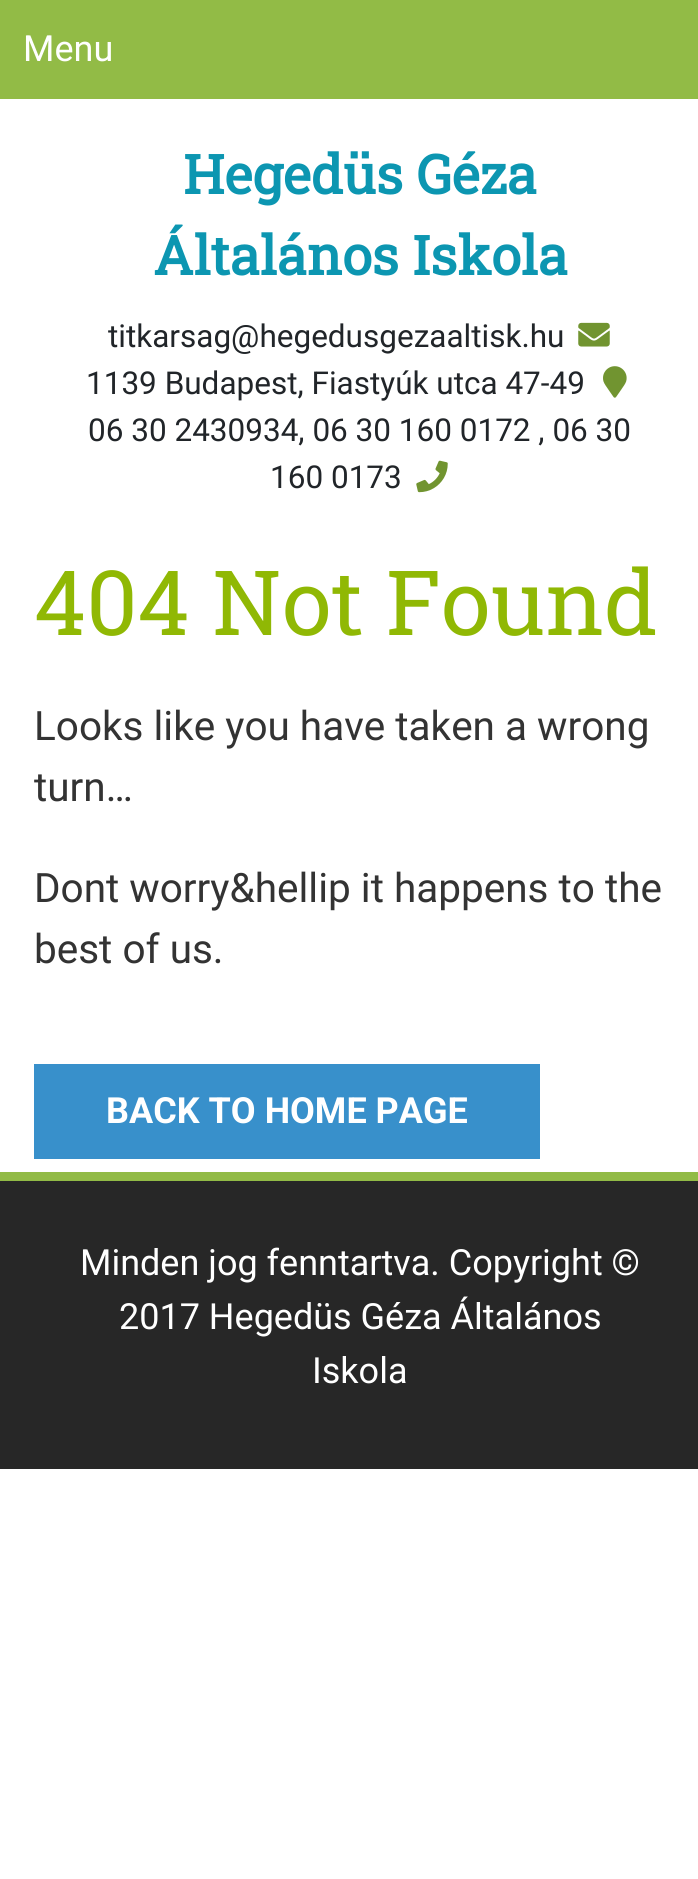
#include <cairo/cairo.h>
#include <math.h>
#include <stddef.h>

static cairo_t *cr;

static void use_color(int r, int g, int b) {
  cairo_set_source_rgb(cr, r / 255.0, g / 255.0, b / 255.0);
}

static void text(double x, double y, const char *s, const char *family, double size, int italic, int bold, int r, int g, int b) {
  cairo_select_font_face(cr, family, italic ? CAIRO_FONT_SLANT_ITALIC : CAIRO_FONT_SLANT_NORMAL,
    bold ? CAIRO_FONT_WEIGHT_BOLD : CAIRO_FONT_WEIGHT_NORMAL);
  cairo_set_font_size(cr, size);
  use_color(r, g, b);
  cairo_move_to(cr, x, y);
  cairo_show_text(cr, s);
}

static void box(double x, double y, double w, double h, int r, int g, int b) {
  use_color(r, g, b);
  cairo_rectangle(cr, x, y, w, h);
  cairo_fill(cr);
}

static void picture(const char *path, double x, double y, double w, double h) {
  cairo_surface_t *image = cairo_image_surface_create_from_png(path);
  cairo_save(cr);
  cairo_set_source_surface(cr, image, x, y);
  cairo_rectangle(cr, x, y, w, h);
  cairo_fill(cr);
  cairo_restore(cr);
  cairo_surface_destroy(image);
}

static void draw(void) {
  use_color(255, 255, 255);
  cairo_paint(cr);
  box(0, 0, 698, 99, 146, 187, 70);
  picture("img_01.png", 578, 322, 32, 25);
  picture("img_02.png", 603, 366, 24, 32);
  picture("img_03.png", 416, 460, 32, 33);
  box(34, 1064, 506, 95, 56, 144, 203);
  box(0, 1172, 698, 9, 146, 187, 70);
  box(0, 1181, 698, 288, 39, 39, 39);
  text(23, 61, "Menu", "Roboto", 36, 0, 0, 255, 255, 255);
  text(183, 194, "Hegedüs Géza", "Roboto Slab", 54, 0, 1, 12, 150, 177);
  text(153, 275, "Általános Iskola", "Roboto Slab", 54, 0, 1, 12, 150, 177);
  text(108, 347, "titkarsag@hegedusgezaaltisk.hu", "Roboto", 31.5, 0, 0, 33, 37, 41);
  text(86, 394, "1139 Budapest, Fiastyúk utca 47-49", "Roboto", 31.5, 0, 0, 33, 37, 41);
  text(88, 441, "06 30 2430934, 06 30 160 0172 , 06 30", "Roboto", 31.5, 0, 0, 33, 37, 41);
  text(270, 488, "160 0173", "Roboto", 31.5, 0, 0, 33, 37, 41);
  text(34, 635, "404 Not Found", "Roboto Slab", 90, 0, 0, 144, 184, 4);
  text(34, 740, "Looks like you have taken a wrong", "Roboto", 40.5, 0, 0, 51, 51, 51);
  text(34, 801, "turn…", "Roboto", 40.5, 0, 0, 51, 51, 51);
  text(34, 902, "Dont worry&hellip it happens to the", "Roboto", 40.5, 0, 0, 51, 51, 51);
  text(34, 963, "best of us.", "Roboto", 40.5, 0, 0, 51, 51, 51);
  text(106, 1123, "BACK TO HOME PAGE", "Roboto", 36, 0, 1, 255, 255, 255);
  text(80, 1275, "Minden jog fenntartva. Copyright ©", "Roboto", 36, 0, 0, 255, 255, 255);
  text(119, 1329, "2017 Hegedüs Géza Általános", "Roboto", 36, 0, 0, 255, 255, 255);
  text(312, 1383, "Iskola", "Roboto", 36, 0, 0, 255, 255, 255);
}

int main(void) {
  cairo_surface_t *surface = cairo_image_surface_create(CAIRO_FORMAT_RGB24, 698, 1879);
  cr = cairo_create(surface);
  cairo_font_options_t *options = cairo_font_options_create();
  cairo_font_options_set_hint_metrics(options, CAIRO_HINT_METRICS_OFF);
  cairo_font_options_set_hint_style(options, CAIRO_HINT_STYLE_NONE);
  cairo_set_font_options(cr, options);
  cairo_set_miter_limit(cr, 4);
  draw();
  cairo_surface_write_to_png(surface, "out.png");
  cairo_font_options_destroy(options);
  cairo_destroy(cr);
  cairo_surface_destroy(surface);
  return 0;
}
